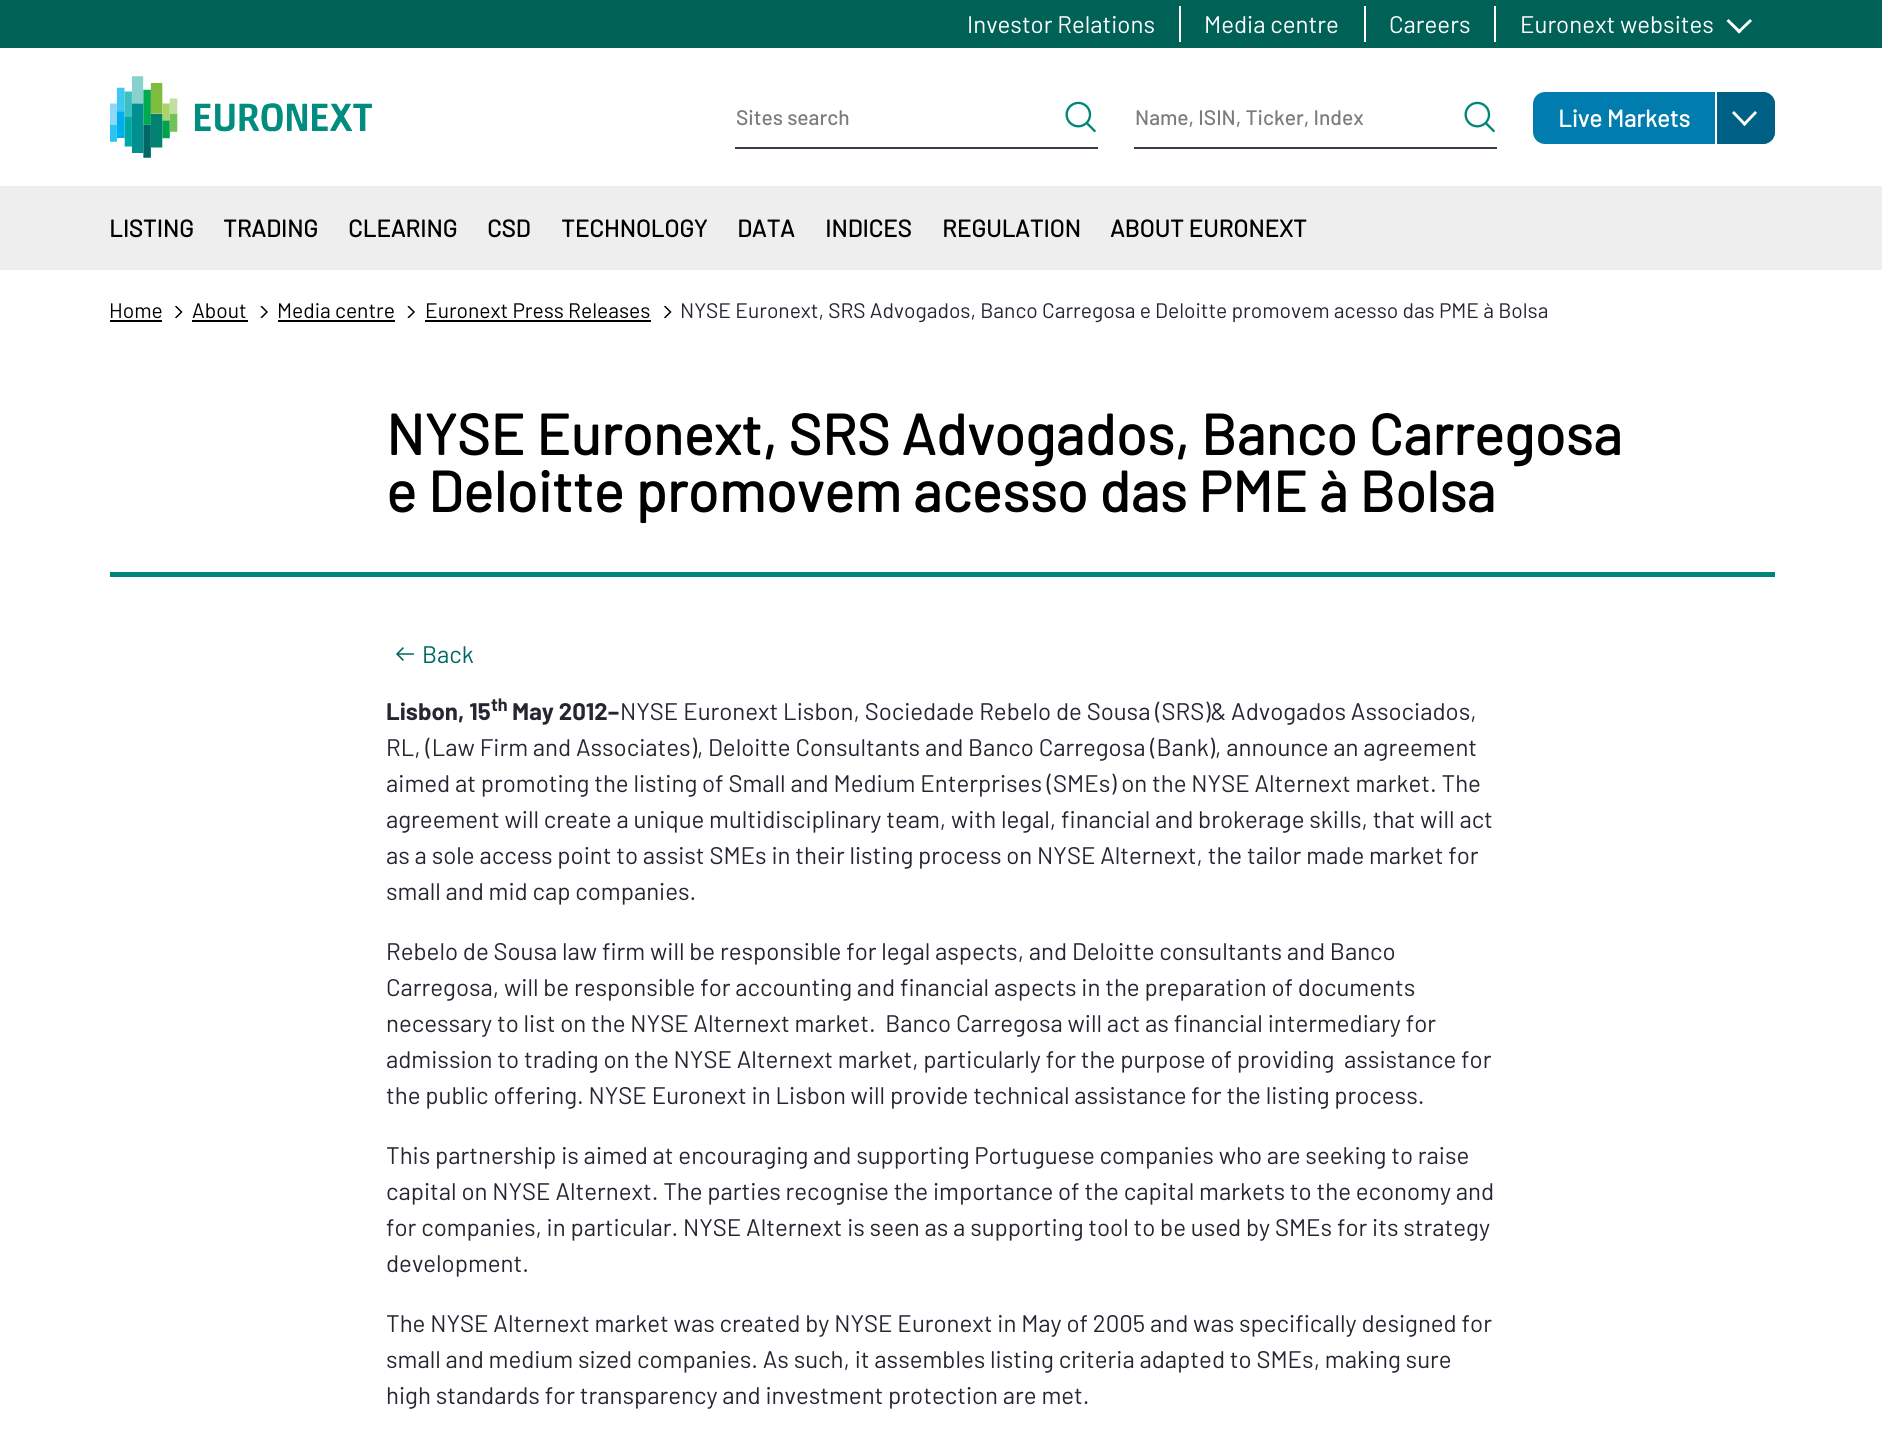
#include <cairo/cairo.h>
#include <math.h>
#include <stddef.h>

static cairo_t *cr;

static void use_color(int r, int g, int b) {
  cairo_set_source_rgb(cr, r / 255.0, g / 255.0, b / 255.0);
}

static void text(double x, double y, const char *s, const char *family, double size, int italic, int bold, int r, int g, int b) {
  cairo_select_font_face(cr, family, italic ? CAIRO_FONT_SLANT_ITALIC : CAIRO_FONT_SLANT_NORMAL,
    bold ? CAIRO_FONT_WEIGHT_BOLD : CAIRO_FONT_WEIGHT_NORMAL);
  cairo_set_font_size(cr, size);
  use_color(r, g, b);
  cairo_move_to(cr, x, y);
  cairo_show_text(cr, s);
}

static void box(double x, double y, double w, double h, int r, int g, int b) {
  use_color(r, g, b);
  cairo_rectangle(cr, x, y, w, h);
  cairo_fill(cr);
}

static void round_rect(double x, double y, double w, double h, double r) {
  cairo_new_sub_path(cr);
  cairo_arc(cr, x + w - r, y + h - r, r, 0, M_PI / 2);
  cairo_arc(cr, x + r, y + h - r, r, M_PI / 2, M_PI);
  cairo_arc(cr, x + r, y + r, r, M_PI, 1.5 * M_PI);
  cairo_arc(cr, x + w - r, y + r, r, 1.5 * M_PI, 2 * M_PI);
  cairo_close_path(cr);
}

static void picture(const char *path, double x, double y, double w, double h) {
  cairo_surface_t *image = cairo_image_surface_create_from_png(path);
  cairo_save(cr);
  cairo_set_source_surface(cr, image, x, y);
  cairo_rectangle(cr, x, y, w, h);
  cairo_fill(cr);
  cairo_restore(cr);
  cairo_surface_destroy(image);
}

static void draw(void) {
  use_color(255, 255, 255);
  cairo_paint(cr);
  box(0, 0, 1882, 48, 0, 97, 87);
  box(1179, 6, 2, 36, 255, 255, 255);
  box(1364, 6, 2, 36, 255, 255, 255);
  box(1494, 6, 2, 36, 255, 255, 255);
  cairo_new_path(cr);
  cairo_move_to(cr, 1750, 19);
  cairo_line_to(cr, 1752, 21);
  cairo_line_to(cr, 1739, 33.5);
  cairo_line_to(cr, 1737, 31.5);
  cairo_close_path(cr);
  cairo_fill(cr);
  cairo_new_path(cr);
  cairo_move_to(cr, 1728.5, 19);
  cairo_line_to(cr, 1741.5, 31.5);
  cairo_line_to(cr, 1739, 33.5);
  cairo_line_to(cr, 1726.5, 21);
  cairo_close_path(cr);
  cairo_fill(cr);
  picture("img_01.png", 110, 76, 262, 82);
  box(735, 147, 363, 2, 57, 58, 69);
  picture("img_02.png", 1065, 101, 31, 32);
  box(1134, 147, 363, 2, 57, 58, 69);
  picture("img_02.png", 1464, 101, 31, 32);
  use_color(0, 125, 174);
  round_rect(1533, 92, 242, 52, 12);
  cairo_fill(cr);
  use_color(0, 95, 132);
  cairo_new_path(cr);
  cairo_move_to(cr, 1715, 92);
  cairo_line_to(cr, 1763, 92);
  cairo_curve_to(cr, 1769.5, 92, 1775, 97.5, 1775, 104);
  cairo_line_to(cr, 1775, 132);
  cairo_curve_to(cr, 1775, 138.5, 1769.5, 144, 1763, 144);
  cairo_line_to(cr, 1715, 144);
  cairo_close_path(cr);
  cairo_fill(cr);
  box(1715, 92, 2, 52, 255, 255, 255);
  cairo_new_path(cr);
  cairo_move_to(cr, 1755, 111);
  cairo_line_to(cr, 1757, 113);
  cairo_line_to(cr, 1744.5, 126);
  cairo_line_to(cr, 1742.5, 124);
  cairo_close_path(cr);
  cairo_fill(cr);
  cairo_new_path(cr);
  cairo_move_to(cr, 1734, 111);
  cairo_line_to(cr, 1746.5, 124);
  cairo_line_to(cr, 1744.5, 126);
  cairo_line_to(cr, 1732, 113);
  cairo_close_path(cr);
  cairo_fill(cr);
  box(0, 186, 1882, 84, 238, 238, 238);
  box(110, 320, 52, 2, 0, 0, 0);
  picture("img_03.png", 175, 306, 8, 12);
  box(192, 320, 56, 2, 0, 0, 0);
  picture("img_04.png", 260, 306, 8, 12);
  box(278, 320, 117, 2, 0, 0, 0);
  picture("img_05.png", 407, 306, 8, 12);
  box(425, 320, 226, 2, 0, 0, 0);
  picture("img_03.png", 664, 306, 8, 12);
  box(110, 572, 1665, 5, 0, 133, 119);
  picture("img_06.png", 396, 647, 18, 14);
  text(967, 33, "Investor Relations", "Barlow", 24, 0, 0, 255, 255, 255);
  text(1204, 33, "Media centre", "Barlow", 24, 0, 0, 255, 255, 255);
  text(1389, 33, "Careers", "Barlow", 24, 0, 0, 255, 255, 255);
  text(1520, 33, "Euronext websites", "Barlow", 24, 0, 0, 255, 255, 255);
  text(736, 125, "Sites search", "Barlow Medium", 21, 0, 0, 124, 124, 124);
  text(1135, 125, "Name, ISIN, Ticker, Index", "Barlow Medium", 21, 0, 0, 124, 124, 124);
  text(1558, 127, "Live Markets", "Barlow", 24, 0, 1, 255, 255, 255);
  text(109, 237, "LISTING", "Barlow", 24, 0, 1, 0, 0, 0);
  text(223, 237, "TRADING", "Barlow", 24, 0, 1, 0, 0, 0);
  text(348, 237, "CLEARING", "Barlow", 24, 0, 1, 0, 0, 0);
  text(487, 237, "CSD", "Barlow", 24, 0, 1, 0, 0, 0);
  text(561, 237, "TECHNOLOGY", "Barlow", 24, 0, 1, 0, 0, 0);
  text(737, 237, "DATA", "Barlow", 24, 0, 1, 0, 0, 0);
  text(825, 237, "INDICES", "Barlow", 24, 0, 1, 0, 0, 0);
  text(942, 237, "REGULATION", "Barlow", 24, 0, 1, 0, 0, 0);
  text(1110, 237, "ABOUT EURONEXT", "Barlow", 24, 0, 1, 0, 0, 0);
  text(109, 318, "Home", "Barlow", 21, 0, 0, 0, 0, 0);
  text(192, 318, "About", "Barlow", 21, 0, 0, 0, 0, 0);
  text(277, 318, "Media centre", "Barlow", 21, 0, 0, 0, 0, 0);
  text(425, 318, "Euronext Press Releases", "Barlow", 21, 0, 0, 0, 0, 0);
  text(680, 318, "NYSE Euronext, SRS Advogados, Banco Carregosa e Deloitte promovem acesso das PME à Bolsa", "Barlow", 21, 0, 0, 37, 38, 49);
  text(386, 455, "NYSE Euronext, SRS Advogados, Banco Carregosa", "Barlow", 57, 0, 1, 0, 0, 0);
  text(386, 512, "e Deloitte promovem acesso das PME à Bolsa", "Barlow", 57, 0, 1, 0, 0, 0);
  text(422, 663, "Back", "Barlow", 24, 0, 0, 0, 104, 94);
  text(386, 720, "Lisbon, 15", "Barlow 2", 24, 0, 1, 37, 38, 49);
  text(491, 711, "th", "Barlow 2", 18, 0, 1, 37, 38, 49);
  text(512, 720, "May 2012–", "Barlow 2", 24, 0, 1, 37, 38, 49);
  text(620, 720, "NYSE Euronext Lisbon, Sociedade Rebelo de Sousa (SRS)& Advogados Associados,", "Barlow", 24, 0, 0, 37, 38, 49);
  text(386, 756, "RL, (Law Firm and Associates), Deloitte Consultants and Banco Carregosa (Bank), announce an agreement", "Barlow", 24, 0, 0, 37, 38, 49);
  text(386, 792, "aimed at promoting the listing of Small and Medium Enterprises (SMEs) on the NYSE Alternext market. The", "Barlow", 24, 0, 0, 37, 38, 49);
  text(386, 828, "agreement will create a unique multidisciplinary team, with legal, financial and brokerage skills, that will act", "Barlow", 24, 0, 0, 37, 38, 49);
  text(386, 864, "as a sole access point to assist SMEs in their listing process on NYSE Alternext, the tailor made market for", "Barlow", 24, 0, 0, 37, 38, 49);
  text(386, 900, "small and mid cap companies.", "Barlow", 24, 0, 0, 37, 38, 49);
  text(386, 960, "Rebelo de Sousa law firm will be responsible for legal aspects, and Deloitte consultants and Banco", "Barlow", 24, 0, 0, 37, 38, 49);
  text(386, 996, "Carregosa, will be responsible for accounting and financial aspects in the preparation of documents", "Barlow", 24, 0, 0, 37, 38, 49);
  text(386, 1032, "necessary to list on the NYSE Alternext market.  Banco Carregosa will act as financial intermediary for", "Barlow", 24, 0, 0, 37, 38, 49);
  text(386, 1068, "admission to trading on the NYSE Alternext market, particularly for the purpose of providing  assistance for", "Barlow", 24, 0, 0, 37, 38, 49);
  text(386, 1104, "the public offering. NYSE Euronext in Lisbon will provide technical assistance for the listing process.", "Barlow", 24, 0, 0, 37, 38, 49);
  text(386, 1164, "This partnership is aimed at encouraging and supporting Portuguese companies who are seeking to raise", "Barlow", 24, 0, 0, 37, 38, 49);
  text(386, 1200, "capital on NYSE Alternext. The parties recognise the importance of the capital markets to the economy and", "Barlow", 24, 0, 0, 37, 38, 49);
  text(386, 1236, "for companies, in particular. NYSE Alternext is seen as a supporting tool to be used by SMEs for its strategy", "Barlow", 24, 0, 0, 37, 38, 49);
  text(386, 1272, "development.", "Barlow", 24, 0, 0, 37, 38, 49);
  text(386, 1332, "The NYSE Alternext market was created by NYSE Euronext in May of 2005 and was specifically designed for", "Barlow", 24, 0, 0, 37, 38, 49);
  text(386, 1368, "small and medium sized companies. As such, it assembles listing criteria adapted to SMEs, making sure", "Barlow", 24, 0, 0, 37, 38, 49);
  text(386, 1404, "high standards for transparency and investment protection are met.", "Barlow", 24, 0, 0, 37, 38, 49);
}

int main(void) {
  cairo_surface_t *surface = cairo_image_surface_create(CAIRO_FORMAT_RGB24, 1882, 1445);
  cr = cairo_create(surface);
  cairo_font_options_t *options = cairo_font_options_create();
  cairo_font_options_set_hint_metrics(options, CAIRO_HINT_METRICS_OFF);
  cairo_font_options_set_hint_style(options, CAIRO_HINT_STYLE_NONE);
  cairo_set_font_options(cr, options);
  cairo_set_miter_limit(cr, 4);
  draw();
  cairo_surface_write_to_png(surface, "out.png");
  cairo_font_options_destroy(options);
  cairo_destroy(cr);
  cairo_surface_destroy(surface);
  return 0;
}
